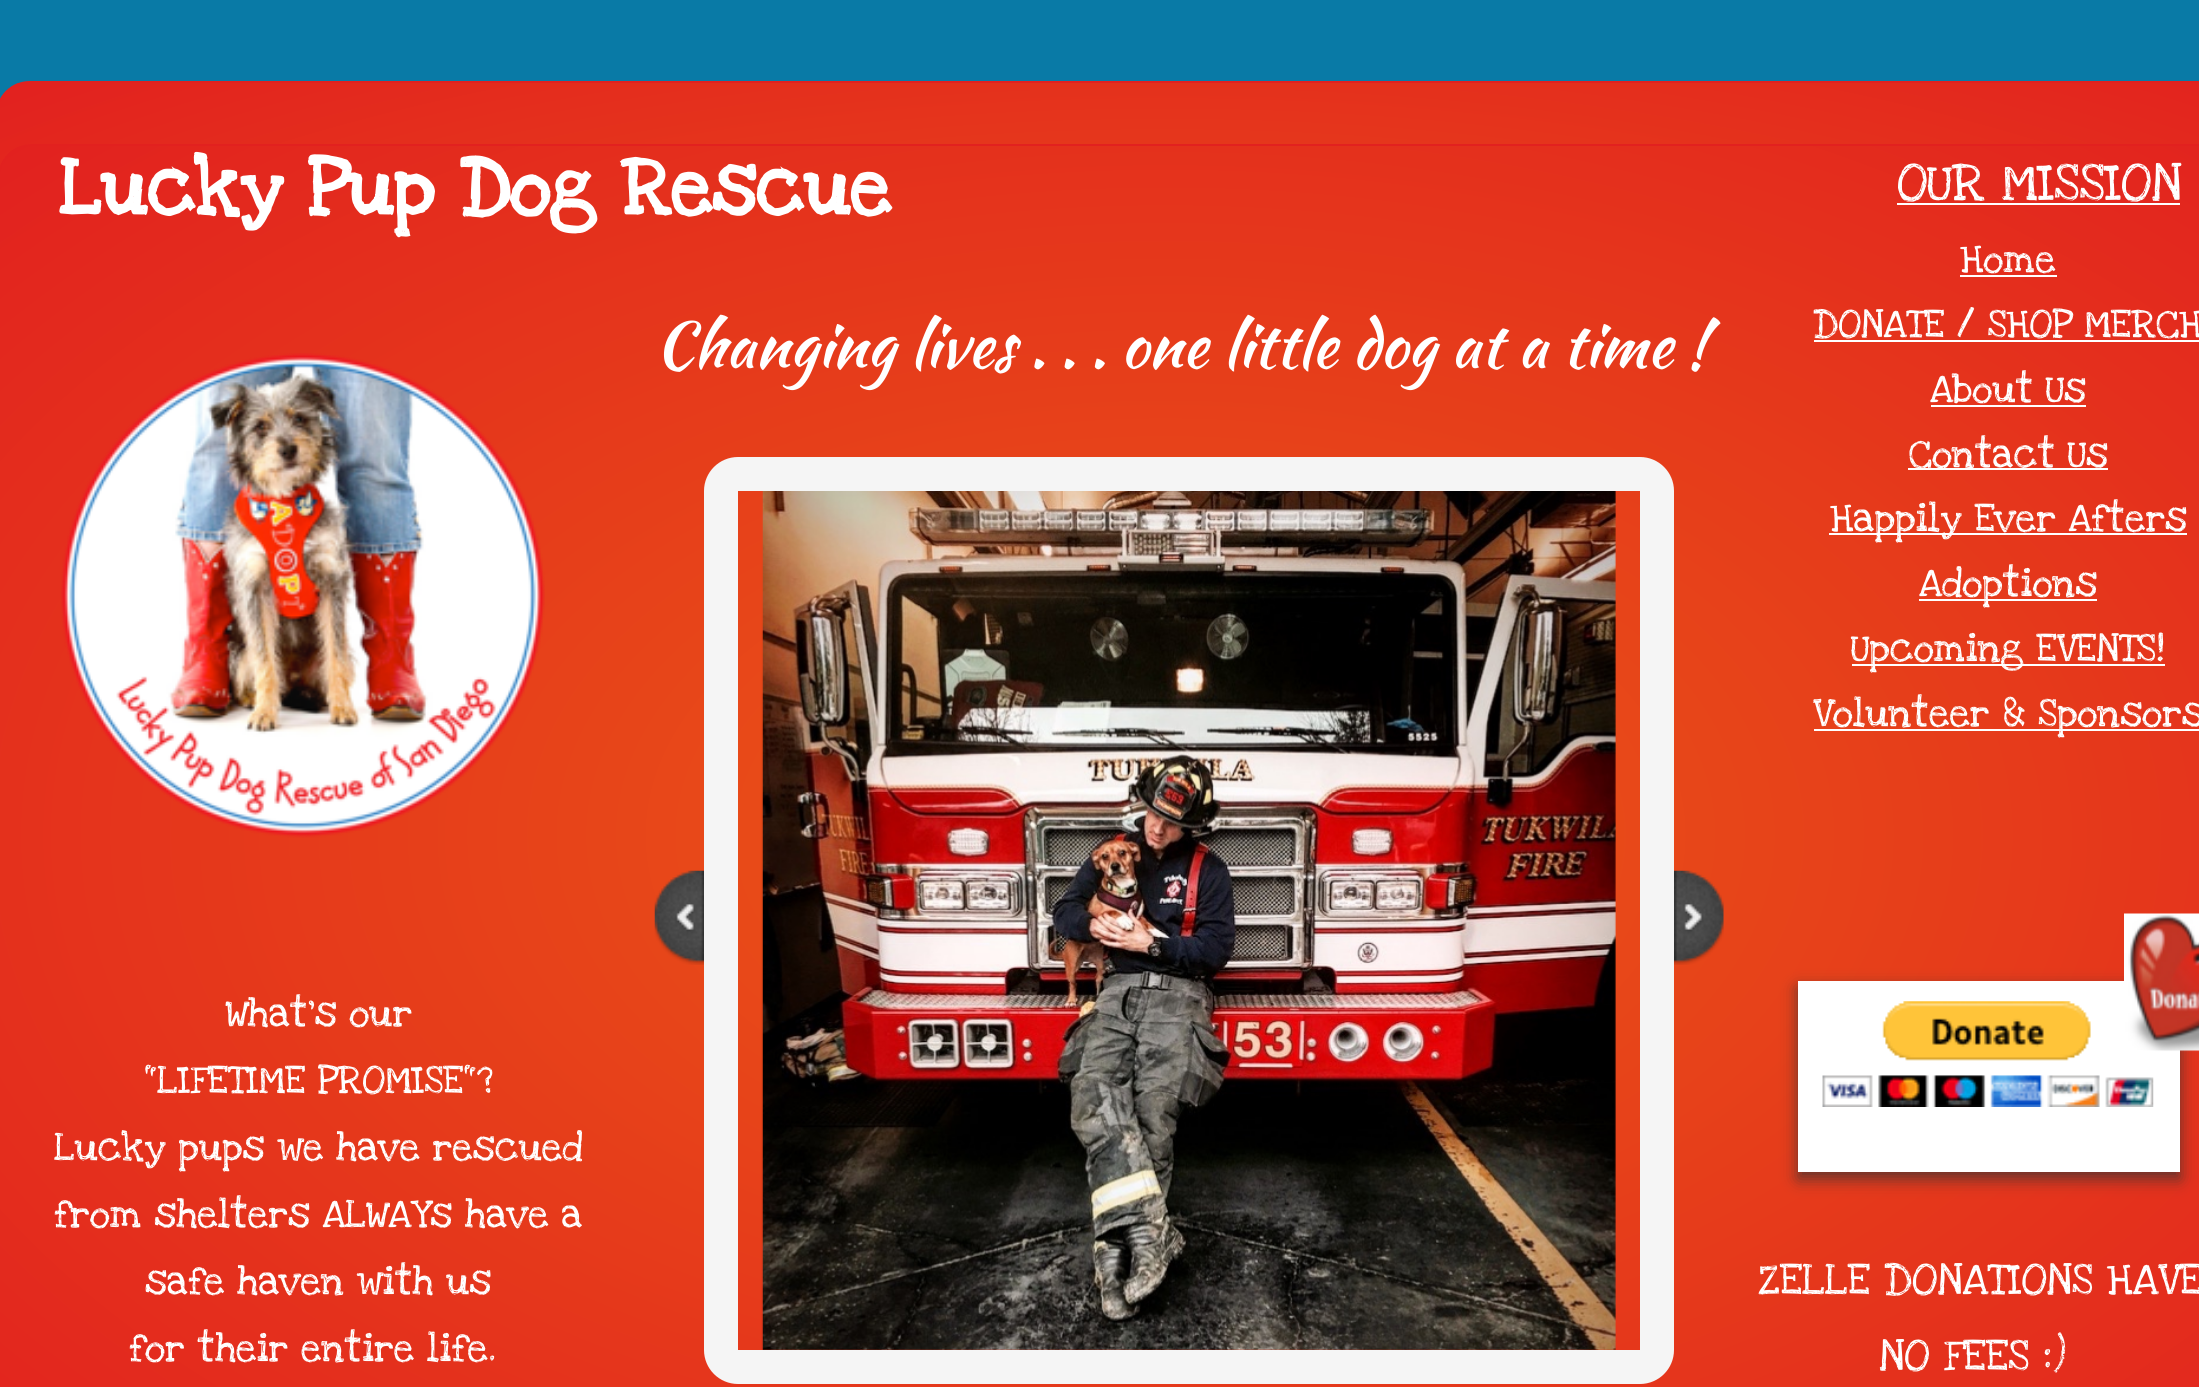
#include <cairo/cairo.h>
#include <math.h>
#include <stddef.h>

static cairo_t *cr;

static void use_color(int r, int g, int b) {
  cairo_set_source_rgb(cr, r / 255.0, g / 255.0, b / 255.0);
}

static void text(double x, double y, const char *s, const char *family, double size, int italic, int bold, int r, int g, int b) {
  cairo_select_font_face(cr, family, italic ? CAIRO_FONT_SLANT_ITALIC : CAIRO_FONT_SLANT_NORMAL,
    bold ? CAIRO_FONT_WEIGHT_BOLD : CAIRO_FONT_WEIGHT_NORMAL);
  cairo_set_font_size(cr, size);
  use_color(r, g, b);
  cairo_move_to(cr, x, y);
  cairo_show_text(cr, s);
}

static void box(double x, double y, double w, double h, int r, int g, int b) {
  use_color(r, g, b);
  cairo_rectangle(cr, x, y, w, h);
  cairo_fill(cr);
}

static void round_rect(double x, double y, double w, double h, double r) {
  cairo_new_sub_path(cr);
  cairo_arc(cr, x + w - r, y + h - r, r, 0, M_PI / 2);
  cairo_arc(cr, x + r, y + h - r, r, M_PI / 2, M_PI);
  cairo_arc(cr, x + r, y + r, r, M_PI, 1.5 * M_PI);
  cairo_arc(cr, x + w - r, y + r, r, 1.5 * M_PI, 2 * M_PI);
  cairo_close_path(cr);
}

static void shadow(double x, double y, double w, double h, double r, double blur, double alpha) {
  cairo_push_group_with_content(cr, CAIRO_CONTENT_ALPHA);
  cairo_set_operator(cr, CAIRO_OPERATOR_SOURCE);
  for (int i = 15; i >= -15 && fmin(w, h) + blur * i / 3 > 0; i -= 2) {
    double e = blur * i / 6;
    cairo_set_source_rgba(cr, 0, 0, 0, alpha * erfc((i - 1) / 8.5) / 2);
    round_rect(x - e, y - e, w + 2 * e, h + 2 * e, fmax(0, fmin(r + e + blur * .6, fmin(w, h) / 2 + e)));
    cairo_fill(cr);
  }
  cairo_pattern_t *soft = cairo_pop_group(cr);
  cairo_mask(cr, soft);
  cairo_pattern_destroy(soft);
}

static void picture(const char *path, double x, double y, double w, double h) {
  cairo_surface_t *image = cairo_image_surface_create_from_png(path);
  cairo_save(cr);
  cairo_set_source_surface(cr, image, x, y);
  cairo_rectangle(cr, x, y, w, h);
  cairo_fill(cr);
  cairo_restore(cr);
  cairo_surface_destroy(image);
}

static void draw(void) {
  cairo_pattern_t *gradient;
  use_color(9, 122, 166);
  cairo_paint(cr);
  cairo_save(cr);
  round_rect(-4, 81, 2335, 810, 34);
  cairo_clip(cr);
  gradient = cairo_pattern_create_radial(0, 0, 0, 0, 0, 1);
  cairo_pattern_set_matrix(gradient, &(cairo_matrix_t){1.0 / 1648, 0, 0, 1.0 / 570, -1.0 * 1163 / 1648, -1.0 * 486 / 570});
  cairo_pattern_add_color_stop_rgba(gradient, 0, 0.918, 0.345, 0.086, 1);
  cairo_pattern_add_color_stop_rgba(gradient, 1, 0.886, 0.129, 0.122, 1);
  cairo_set_source(cr, gradient);
  cairo_pattern_destroy(gradient);
  cairo_rectangle(cr, 0, 83, 2199, 84);
  cairo_fill(cr);
  cairo_restore(cr);
  round_rect(-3, 82, 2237, 808, 33);
  use_color(226, 33, 31);
  cairo_stroke(cr);
  cairo_save(cr);
  round_rect(-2, 144, 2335, 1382, 34);
  cairo_clip(cr);
  gradient = cairo_pattern_create_radial(0, 0, 0, 0, 0, 1);
  cairo_pattern_set_matrix(gradient, &(cairo_matrix_t){1.0 / 1648, 0, 0, 1.0 / 974, -1.0 * 1166 / 1648, -1.0 * 835 / 974});
  cairo_pattern_add_color_stop_rgba(gradient, 0, 0.918, 0.345, 0.086, 1);
  cairo_pattern_add_color_stop_rgba(gradient, 1, 0.886, 0.129, 0.122, 1);
  cairo_set_source(cr, gradient);
  cairo_pattern_destroy(gradient);
  cairo_rectangle(cr, 0, 146, 2199, 1241);
  cairo_fill(cr);
  cairo_restore(cr);
  round_rect(-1, 145, 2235, 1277, 33);
  cairo_stroke(cr);
  box(1897, 203, 283, 2, 255, 255, 255);
  picture("img_01.png", 61, 353, 484, 485);
  box(1960, 275, 97, 2, 255, 255, 255);
  box(1814, 340, 385, 2, 255, 255, 255);
  box(1931, 405, 155, 2, 255, 255, 255);
  box(1908, 468, 200, 2, 255, 255, 255);
  box(1829, 533, 358, 2, 255, 255, 255);
  box(1919, 599, 178, 2, 255, 255, 255);
  box(1852, 664, 313, 2, 255, 255, 255);
  box(1814, 729, 385, 2, 255, 255, 255);
  picture("img_02.png", 654, 870, 50, 95);
  round_rect(721, 474, 936, 893, 17);
  use_color(245, 245, 245);
  cairo_set_line_width(cr, 34);
  cairo_stroke(cr);
  picture("img_03.png", 761, 491, 855, 859);
  picture("img_04.png", 1674, 870, 50, 95);
  use_color(50, 50, 50);
  shadow(1798, 988, 382, 191, 0, 8, 0.75);
  box(1798, 981, 382, 191, 255, 255, 255);
  picture("img_06.png", 1822, 1001, 332, 106);
  picture("img_05.png", 2124, 913, 75, 139);
  text(59, 214, "Lucky Pup Dog Rescue", "Love Ya Like A Sister", 81, 0, 1, 255, 255, 255);
  text(1897, 200, "OUR MISSION", "Love Ya Like A Sister", 54, 0, 0, 255, 255, 255);
  text(655, 367, "Changing lives . . . one little dog at a time !", "Kaushan Script", 63, 0, 0, 255, 255, 255);
  text(1960, 272, "Home", "Love Ya Like A Sister", 40.5, 0, 0, 255, 255, 255);
  text(1813, 337, "DONATE / SHOP MERCH", "Love Ya Like A Sister", 40.5, 0, 0, 255, 255, 255);
  text(1930, 402, "About Us", "Love Ya Like A Sister", 40.5, 0, 0, 255, 255, 255);
  text(1909, 467, "Contact Us", "Love Ya Like A Sister", 40.5, 0, 0, 255, 255, 255);
  text(1830, 531, "Happily Ever Afters", "Love Ya Like A Sister", 40.5, 0, 0, 255, 255, 255);
  text(1919, 596, "Adoptions", "Love Ya Like A Sister", 40.5, 0, 0, 255, 255, 255);
  text(1851, 661, "Upcoming EVENTS!", "Love Ya Like A Sister", 40.5, 0, 0, 255, 255, 255);
  text(1813, 726, "Volunteer & Sponsors", "Love Ya Like A Sister", 40.5, 0, 0, 255, 255, 255);
  text(225, 1026, "What's our", "Love Ya Like A Sister", 40.5, 0, 0, 255, 255, 255);
  text(144, 1093, "\"LIFETIME PROMISE\"?", "Love Ya Like A Sister", 40.5, 0, 0, 255, 255, 255);
  text(54, 1160, "Lucky pups we have rescued", "Love Ya Like A Sister", 40.5, 0, 0, 255, 255, 255);
  text(54, 1227, "from shelters ALWAYs have a", "Love Ya Like A Sister", 40.5, 0, 0, 255, 255, 255);
  text(145, 1294, "safe haven with us", "Love Ya Like A Sister", 40.5, 0, 0, 255, 255, 255);
  text(129, 1361, "for their entire life.", "Love Ya Like A Sister", 40.5, 0, 0, 255, 255, 255);
  text(1758, 1294, "ZELLE DONATIONS HAVE", "Love Ya Like A Sister", 45, 0, 0, 255, 255, 255);
  text(1879, 1370, "NO FEES :)", "Love Ya Like A Sister", 45, 0, 0, 255, 255, 255);
}

int main(void) {
  cairo_surface_t *surface = cairo_image_surface_create(CAIRO_FORMAT_RGB24, 2199, 1387);
  cr = cairo_create(surface);
  cairo_font_options_t *options = cairo_font_options_create();
  cairo_font_options_set_hint_metrics(options, CAIRO_HINT_METRICS_OFF);
  cairo_font_options_set_hint_style(options, CAIRO_HINT_STYLE_NONE);
  cairo_set_font_options(cr, options);
  cairo_set_miter_limit(cr, 4);
  draw();
  cairo_surface_write_to_png(surface, "out.png");
  cairo_font_options_destroy(options);
  cairo_destroy(cr);
  cairo_surface_destroy(surface);
  return 0;
}
